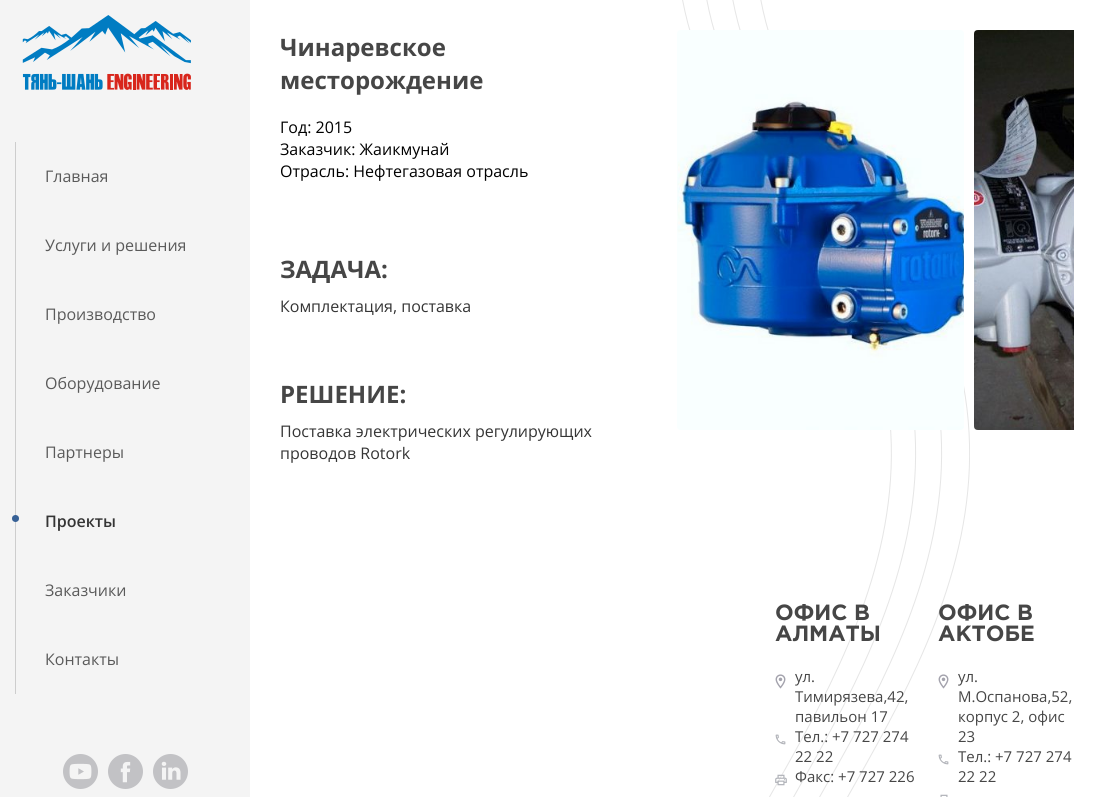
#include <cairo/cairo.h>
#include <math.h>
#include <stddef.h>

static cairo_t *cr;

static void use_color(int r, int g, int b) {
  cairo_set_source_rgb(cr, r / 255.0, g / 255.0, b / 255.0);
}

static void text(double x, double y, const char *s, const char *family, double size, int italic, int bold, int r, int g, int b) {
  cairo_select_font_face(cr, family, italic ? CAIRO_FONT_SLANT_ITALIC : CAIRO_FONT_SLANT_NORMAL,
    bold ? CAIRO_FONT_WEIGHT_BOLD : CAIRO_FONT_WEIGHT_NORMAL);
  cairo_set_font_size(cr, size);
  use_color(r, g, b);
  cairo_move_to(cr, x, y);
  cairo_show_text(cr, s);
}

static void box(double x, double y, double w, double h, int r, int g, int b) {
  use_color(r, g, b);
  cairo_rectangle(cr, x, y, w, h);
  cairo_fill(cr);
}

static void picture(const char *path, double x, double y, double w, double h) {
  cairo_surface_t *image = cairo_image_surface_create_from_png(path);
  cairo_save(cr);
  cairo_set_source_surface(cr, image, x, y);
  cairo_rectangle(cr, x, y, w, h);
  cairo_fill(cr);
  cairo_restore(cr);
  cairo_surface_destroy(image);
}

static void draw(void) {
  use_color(255, 255, 255);
  cairo_paint(cr);
  box(0, 0, 250, 797, 244, 244, 244);
  picture("img_01.png", 22, 15, 169, 75);
  box(15, 142, 1, 552, 205, 205, 205);
  use_color(55, 97, 150);
  cairo_arc(cr, 15.5, 518.5, 3.5, 0, 2 * M_PI);
  cairo_fill(cr);
  picture("img_02.png", 63, 754, 35, 35);
  picture("img_03.png", 108, 754, 35, 35);
  picture("img_04.png", 153, 754, 35, 35);
  picture("img_07.png", 682, 0, 288, 797);
  picture("img_05.png", 677, 30, 287, 400);
  picture("img_06.png", 974, 30, 100, 400);
  picture("img_08.png", 775, 674, 11, 15);
  picture("img_09.png", 775, 734, 11, 11);
  picture("img_10.png", 775, 774, 12, 12);
  picture("img_08.png", 938, 674, 11, 15);
  picture("img_09.png", 938, 754, 11, 11);
  picture("img_11.png", 940, 794, 8, 3);
  text(45, 182, "Главная", "Open Sans", 16, 0, 0, 90, 90, 90);
  text(45, 251, "Услуги и решения", "Open Sans", 16, 0, 0, 90, 90, 90);
  text(45, 320, "Производство", "Open Sans", 16, 0, 0, 90, 90, 90);
  text(45, 389, "Оборудование", "Open Sans", 16, 0, 0, 90, 90, 90);
  text(45, 458, "Партнеры", "Open Sans", 16, 0, 0, 90, 90, 90);
  text(45, 527, "Проекты", "Open Sans SemiBold", 16, 0, 0, 53, 53, 53);
  text(45, 596, "Заказчики", "Open Sans", 16, 0, 0, 90, 90, 90);
  text(45, 665, "Контакты", "Open Sans", 16, 0, 0, 90, 90, 90);
  text(280, 56, "Чинаревское", "Open Sans", 24, 0, 1, 70, 70, 70);
  text(280, 89, "месторождение", "Open Sans", 24, 0, 1, 70, 70, 70);
  text(280, 133, "Год: 2015", "Open Sans", 16, 0, 0, 0, 0, 0);
  text(280, 155, "Заказчик: Жаикмунай", "Open Sans", 16, 0, 0, 0, 0, 0);
  text(280, 177, "Отрасль: Нефтегазовая отрасль", "Open Sans", 16, 0, 0, 0, 0, 0);
  text(280, 278, "ЗАДАЧА:", "Open Sans", 24, 0, 1, 70, 70, 70);
  text(280, 312, "Комплектация, поставка", "Open Sans", 16, 0, 0, 53, 53, 53);
  text(280, 403, "РЕШЕНИЕ:", "Open Sans", 24, 0, 1, 70, 70, 70);
  text(280, 437, "Поставка электрических регулирующих", "Open Sans", 16, 0, 0, 53, 53, 53);
  text(280, 459, "проводов Rotork", "Open Sans", 16, 0, 0, 53, 53, 53);
  text(775, 620, "ОФИС В", "Gotham", 22, 0, 1, 70, 70, 70);
  text(775, 641, "АЛМАТЫ", "Gotham", 22, 0, 1, 70, 70, 70);
  text(795, 682, "ул.", "Open Sans", 15, 0, 0, 70, 70, 70);
  text(795, 702, "Тимирязева,42,", "Open Sans", 15, 0, 0, 70, 70, 70);
  text(795, 722, "павильон 17", "Open Sans", 15, 0, 0, 70, 70, 70);
  text(795, 742, "Тел.: +7 727 274", "Open Sans", 15, 0, 0, 70, 70, 70);
  text(795, 762, "22 22", "Open Sans", 15, 0, 0, 70, 70, 70);
  text(795, 782, "Факс: +7 727 226", "Open Sans", 15, 0, 0, 70, 70, 70);
  text(938, 620, "ОФИС В", "Gotham", 22, 0, 1, 70, 70, 70);
  text(938, 641, "АКТОБЕ", "Gotham", 22, 0, 1, 70, 70, 70);
  text(958, 682, "ул.", "Open Sans", 15, 0, 0, 70, 70, 70);
  text(958, 702, "М.Оспанова,52,", "Open Sans", 15, 0, 0, 70, 70, 70);
  text(958, 722, "корпус 2, офис", "Open Sans", 15, 0, 0, 70, 70, 70);
  text(958, 742, "23", "Open Sans", 15, 0, 0, 70, 70, 70);
  text(958, 762, "Тел.: +7 727 274", "Open Sans", 15, 0, 0, 70, 70, 70);
  text(958, 782, "22 22", "Open Sans", 15, 0, 0, 70, 70, 70);
}

int main(void) {
  cairo_surface_t *surface = cairo_image_surface_create(CAIRO_FORMAT_RGB24, 1104, 797);
  cr = cairo_create(surface);
  cairo_font_options_t *options = cairo_font_options_create();
  cairo_font_options_set_hint_metrics(options, CAIRO_HINT_METRICS_OFF);
  cairo_font_options_set_hint_style(options, CAIRO_HINT_STYLE_NONE);
  cairo_set_font_options(cr, options);
  cairo_set_miter_limit(cr, 4);
  draw();
  cairo_surface_write_to_png(surface, "out.png");
  cairo_font_options_destroy(options);
  cairo_destroy(cr);
  cairo_surface_destroy(surface);
  return 0;
}
